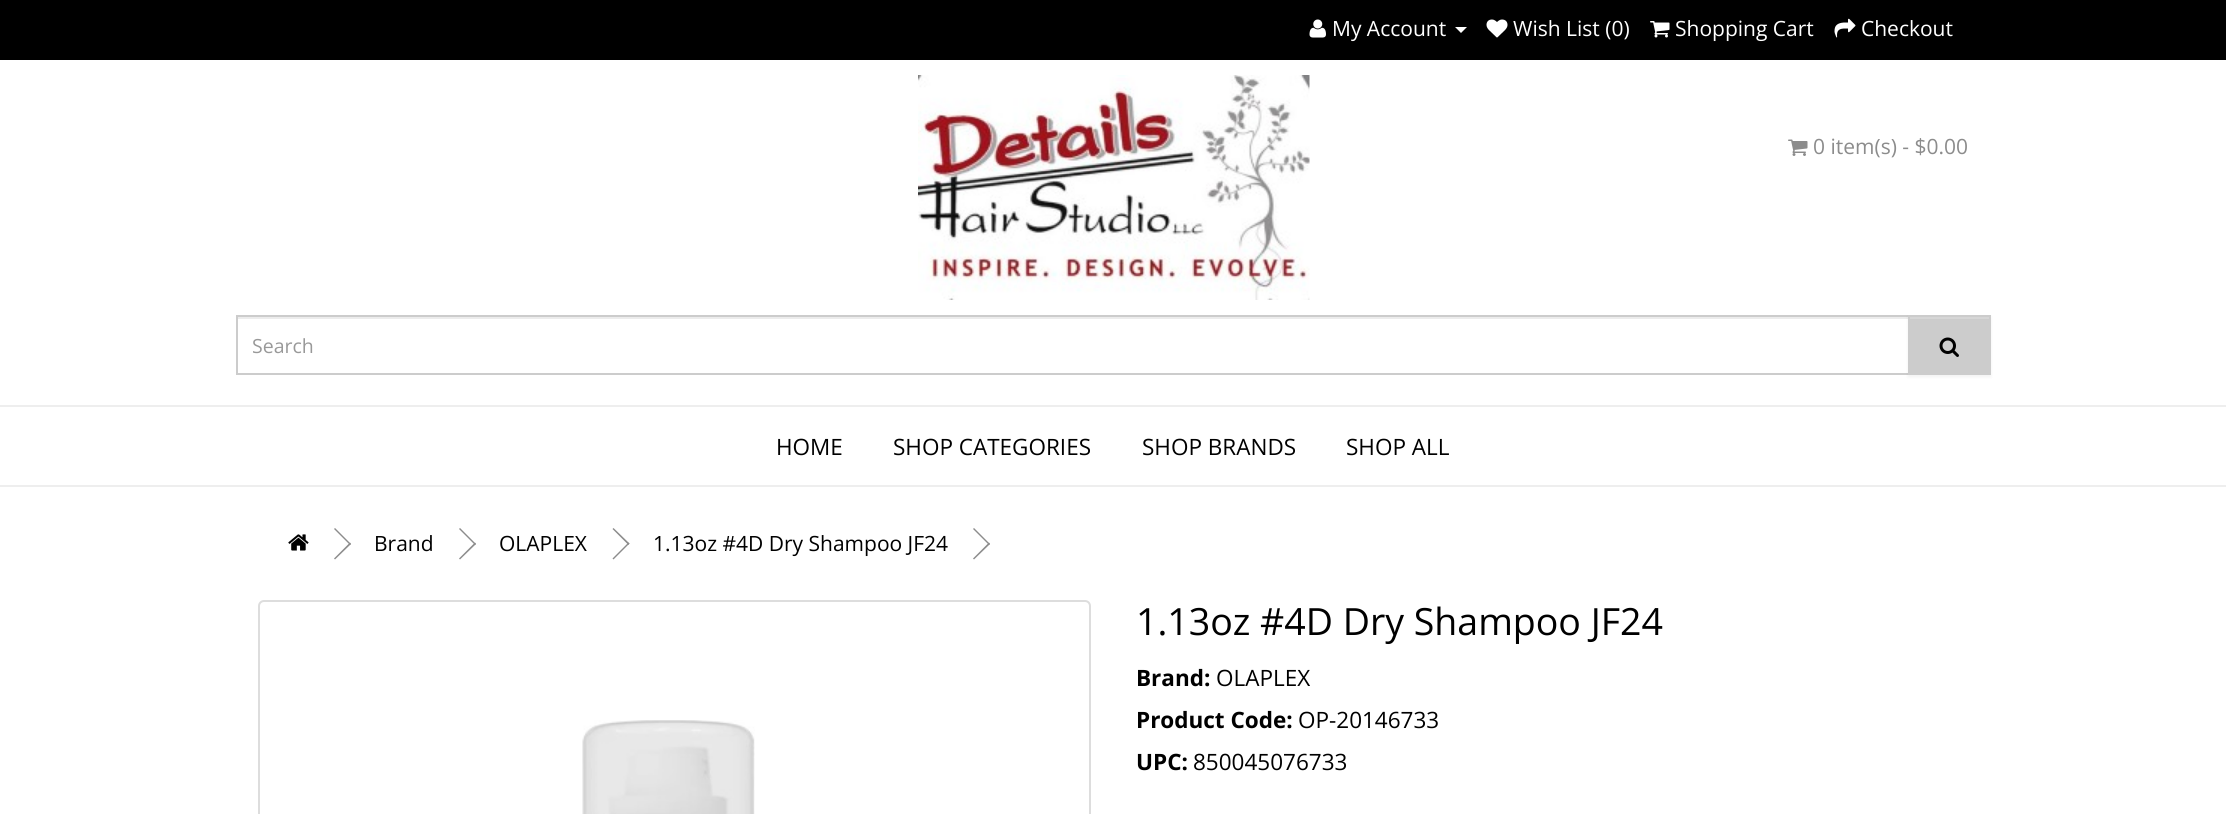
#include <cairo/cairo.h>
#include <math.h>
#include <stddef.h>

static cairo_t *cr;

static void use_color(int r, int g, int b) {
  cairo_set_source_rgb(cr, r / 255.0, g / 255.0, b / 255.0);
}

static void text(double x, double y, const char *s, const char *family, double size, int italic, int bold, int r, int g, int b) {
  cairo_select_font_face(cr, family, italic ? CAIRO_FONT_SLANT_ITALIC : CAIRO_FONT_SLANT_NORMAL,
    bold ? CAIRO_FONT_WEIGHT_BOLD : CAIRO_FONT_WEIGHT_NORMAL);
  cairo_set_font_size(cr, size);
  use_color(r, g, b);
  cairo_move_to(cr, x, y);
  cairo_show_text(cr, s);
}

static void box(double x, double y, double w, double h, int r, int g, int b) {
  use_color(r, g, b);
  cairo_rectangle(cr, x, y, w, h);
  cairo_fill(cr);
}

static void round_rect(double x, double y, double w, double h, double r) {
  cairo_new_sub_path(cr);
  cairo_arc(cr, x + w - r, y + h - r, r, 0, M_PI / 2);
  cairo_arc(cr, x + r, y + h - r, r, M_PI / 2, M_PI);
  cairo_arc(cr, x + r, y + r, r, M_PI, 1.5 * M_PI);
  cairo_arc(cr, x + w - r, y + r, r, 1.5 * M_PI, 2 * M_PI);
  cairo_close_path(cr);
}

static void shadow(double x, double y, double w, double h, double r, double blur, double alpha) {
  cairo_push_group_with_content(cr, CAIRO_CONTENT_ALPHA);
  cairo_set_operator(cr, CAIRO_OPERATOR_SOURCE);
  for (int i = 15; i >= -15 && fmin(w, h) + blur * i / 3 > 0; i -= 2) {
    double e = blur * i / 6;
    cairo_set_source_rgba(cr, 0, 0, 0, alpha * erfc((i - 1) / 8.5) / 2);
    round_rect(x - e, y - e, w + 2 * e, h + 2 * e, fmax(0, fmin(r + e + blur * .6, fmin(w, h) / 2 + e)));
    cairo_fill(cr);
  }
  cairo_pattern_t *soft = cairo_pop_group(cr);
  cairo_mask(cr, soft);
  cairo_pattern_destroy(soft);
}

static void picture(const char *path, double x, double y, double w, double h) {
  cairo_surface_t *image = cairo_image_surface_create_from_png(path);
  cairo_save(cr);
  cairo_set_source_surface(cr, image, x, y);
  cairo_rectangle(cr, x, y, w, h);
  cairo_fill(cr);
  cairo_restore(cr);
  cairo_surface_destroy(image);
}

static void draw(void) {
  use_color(255, 255, 255);
  cairo_paint(cr);
  box(0, 0, 2226, 60, 0, 0, 0);
  picture("img_01.png", 1309, 19, 17, 19);
  use_color(255, 255, 255);
  cairo_new_path(cr);
  cairo_move_to(cr, 1455, 27);
  cairo_line_to(cr, 1467, 27);
  cairo_line_to(cr, 1461, 33);
  cairo_close_path(cr);
  cairo_fill(cr);
  picture("img_02.png", 1486, 19, 22, 19);
  picture("img_03.png", 1650, 21, 20, 17);
  picture("img_04.png", 1834, 18, 22, 20);
  box(0, 405, 2226, 2, 238, 238, 238);
  picture("img_05.png", 918, 75, 392, 225);
  picture("img_06.png", 1788, 139, 20, 17);
  box(237, 317, 1671, 2, 236, 236, 236);
  cairo_rectangle(cr, 237, 316, 1672, 58);
  use_color(204, 204, 204);
  cairo_stroke(cr);
  use_color(0, 0, 0);
  shadow(1908, 317, 83, 60, 0, 1.5, 0.05);
  box(1908, 315, 83, 60, 204, 204, 204);
  box(1910, 317, 79, 2, 214, 214, 214);
  picture("img_07.png", 1939, 337, 20, 20);
  box(0, 485, 2226, 2, 238, 238, 238);
  picture("img_08.png", 288, 534, 21, 17);
  use_color(140, 140, 140);
  cairo_new_path(cr);
  cairo_move_to(cr, 334, 529);
  cairo_line_to(cr, 335, 528);
  cairo_line_to(cr, 351, 544);
  cairo_line_to(cr, 350, 545);
  cairo_close_path(cr);
  cairo_fill(cr);
  cairo_new_path(cr);
  cairo_move_to(cr, 334, 558.5);
  cairo_line_to(cr, 350, 542.5);
  cairo_line_to(cr, 351, 544);
  cairo_line_to(cr, 335, 559.5);
  cairo_close_path(cr);
  cairo_fill(cr);
  cairo_new_path(cr);
  cairo_move_to(cr, 459, 529);
  cairo_line_to(cr, 460, 528);
  cairo_line_to(cr, 476, 544);
  cairo_line_to(cr, 475, 545);
  cairo_close_path(cr);
  cairo_fill(cr);
  cairo_new_path(cr);
  cairo_move_to(cr, 459, 558.5);
  cairo_line_to(cr, 475, 542.5);
  cairo_line_to(cr, 476, 544);
  cairo_line_to(cr, 460, 559.5);
  cairo_close_path(cr);
  cairo_fill(cr);
  cairo_new_path(cr);
  cairo_move_to(cr, 612.5, 529);
  cairo_line_to(cr, 613.5, 528);
  cairo_line_to(cr, 629.5, 543.5);
  cairo_line_to(cr, 628.5, 545);
  cairo_close_path(cr);
  cairo_fill(cr);
  cairo_new_path(cr);
  cairo_move_to(cr, 612.5, 558.5);
  cairo_line_to(cr, 628.5, 542.5);
  cairo_line_to(cr, 629.5, 543.5);
  cairo_line_to(cr, 613.5, 559.5);
  cairo_close_path(cr);
  cairo_fill(cr);
  cairo_new_path(cr);
  cairo_move_to(cr, 973, 529);
  cairo_line_to(cr, 974, 528);
  cairo_line_to(cr, 990, 544);
  cairo_line_to(cr, 989, 545);
  cairo_close_path(cr);
  cairo_fill(cr);
  cairo_new_path(cr);
  cairo_move_to(cr, 973, 558.5);
  cairo_line_to(cr, 989, 542.5);
  cairo_line_to(cr, 990, 544);
  cairo_line_to(cr, 974, 559.5);
  cairo_close_path(cr);
  cairo_fill(cr);
  round_rect(259, 601, 831, 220, 5);
  use_color(221, 221, 221);
  cairo_stroke(cr);
  picture("img_09.png", 582, 720, 173, 94);
  text(1332, 36, "My Account", "Open Sans", 21, 0, 0, 255, 255, 255);
  text(1513, 36, "Wish List (0)", "Open Sans", 21, 0, 0, 255, 255, 255);
  text(1675, 36, "Shopping Cart", "Open Sans", 21, 0, 0, 255, 255, 255);
  text(1861, 36, "Checkout", "Open Sans", 21, 0, 0, 255, 255, 255);
  text(1813, 154, "0 item(s) - $0.00", "Open Sans", 21, 0, 0, 140, 140, 140);
  text(252, 353, "Search", "Open Sans", 19.5, 0, 0, 153, 153, 153);
  text(776, 455, "HOME", "Open Sans", 22.5, 0, 0, 0, 0, 0);
  text(893, 455, "SHOP CATEGORIES", "Open Sans", 22.5, 0, 0, 0, 0, 0);
  text(1142, 455, "SHOP BRANDS", "Open Sans", 22.5, 0, 0, 0, 0, 0);
  text(1346, 455, "SHOP ALL", "Open Sans", 22.5, 0, 0, 0, 0, 0);
  text(374, 551, "Brand", "Open Sans", 21, 0, 0, 0, 0, 0);
  text(499, 551, "OLAPLEX", "Open Sans", 21, 0, 0, 0, 0, 0);
  text(653, 551, "1.13oz #4D Dry Shampoo JF24", "Open Sans", 21, 0, 0, 0, 0, 0);
  text(1136, 635, "1.13oz #4D Dry Shampoo JF24", "Open Sans", 37.5, 0, 0, 0, 0, 0);
  text(1136, 686, "Brand:", "Open Sans", 22.5, 0, 1, 0, 0, 0);
  text(1216, 686, "OLAPLEX", "Open Sans", 22.5, 0, 0, 0, 0, 0);
  text(1136, 728, "Product Code:", "Open Sans", 22.5, 0, 1, 0, 0, 0);
  text(1298, 728, "OP-20146733", "Open Sans", 22.5, 0, 0, 0, 0, 0);
  text(1136, 770, "UPC:", "Open Sans", 22.5, 0, 1, 0, 0, 0);
  text(1193, 770, "850045076733", "Open Sans", 22.5, 0, 0, 0, 0, 0);
}

int main(void) {
  cairo_surface_t *surface = cairo_image_surface_create(CAIRO_FORMAT_RGB24, 2226, 814);
  cr = cairo_create(surface);
  cairo_font_options_t *options = cairo_font_options_create();
  cairo_font_options_set_hint_metrics(options, CAIRO_HINT_METRICS_OFF);
  cairo_font_options_set_hint_style(options, CAIRO_HINT_STYLE_NONE);
  cairo_set_font_options(cr, options);
  cairo_set_miter_limit(cr, 4);
  draw();
  cairo_surface_write_to_png(surface, "out.png");
  cairo_font_options_destroy(options);
  cairo_destroy(cr);
  cairo_surface_destroy(surface);
  return 0;
}
